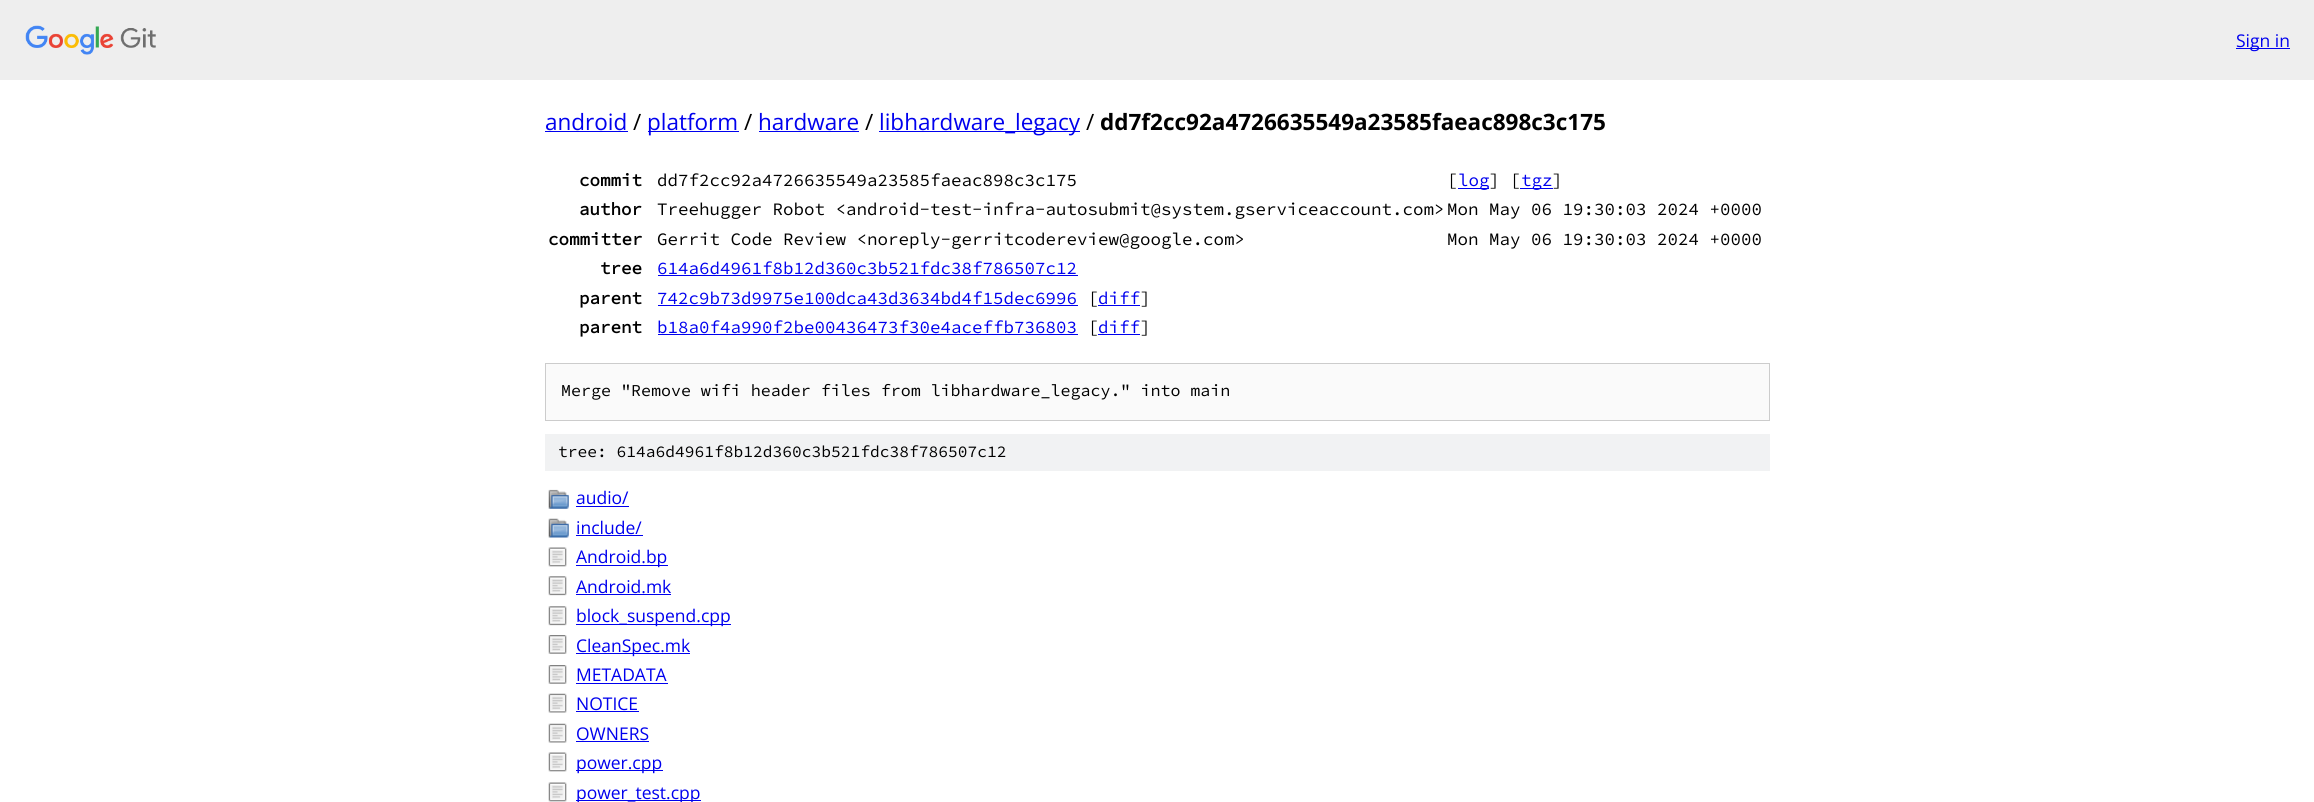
#include <cairo/cairo.h>
#include <math.h>
#include <stddef.h>

static cairo_t *cr;

static void use_color(int r, int g, int b) {
  cairo_set_source_rgb(cr, r / 255.0, g / 255.0, b / 255.0);
}

static void text(double x, double y, const char *s, const char *family, double size, int italic, int bold, int r, int g, int b) {
  cairo_select_font_face(cr, family, italic ? CAIRO_FONT_SLANT_ITALIC : CAIRO_FONT_SLANT_NORMAL,
    bold ? CAIRO_FONT_WEIGHT_BOLD : CAIRO_FONT_WEIGHT_NORMAL);
  cairo_set_font_size(cr, size);
  use_color(r, g, b);
  cairo_move_to(cr, x, y);
  cairo_show_text(cr, s);
}

static void box(double x, double y, double w, double h, int r, int g, int b) {
  use_color(r, g, b);
  cairo_rectangle(cr, x, y, w, h);
  cairo_fill(cr);
}

static void picture(const char *path, double x, double y, double w, double h) {
  cairo_surface_t *image = cairo_image_surface_create_from_png(path);
  cairo_save(cr);
  cairo_set_source_surface(cr, image, x, y);
  cairo_rectangle(cr, x, y, w, h);
  cairo_fill(cr);
  cairo_restore(cr);
  cairo_surface_destroy(image);
}

static void draw(void) {
  use_color(255, 255, 255);
  cairo_paint(cr);
  box(0, 0, 2314, 80, 238, 238, 238);
  picture("img_01.png", 25, 25, 131, 30);
  box(2236, 48, 54, 1, 0, 0, 238);
  box(545, 131, 83, 1, 0, 0, 238);
  box(648, 131, 91, 1, 0, 0, 238);
  box(759, 131, 100, 1, 0, 0, 238);
  box(879, 131, 201, 1, 0, 0, 238);
  box(1458, 188, 31, 1, 0, 0, 238);
  box(1520, 188, 33, 1, 0, 0, 238);
  box(658, 275, 420, 1, 0, 0, 238);
  box(658, 305, 420, 1, 0, 0, 238);
  box(1098, 305, 42, 1, 0, 0, 238);
  box(658, 334, 420, 1, 0, 0, 238);
  box(1098, 334, 42, 1, 0, 0, 238);
  use_color(250, 250, 250);
  cairo_rectangle(cr, 545.5, 363.5, 1224, 57);
  cairo_fill_preserve(cr);
  use_color(204, 204, 204);
  cairo_set_line_width(cr, 1);
  cairo_stroke(cr);
  box(545, 434, 1225, 37, 241, 242, 243);
  picture("img_02.png", 548, 489, 21, 20);
  box(576, 506, 53, 1, 0, 0, 238);
  picture("img_03.png", 548, 518, 21, 20);
  box(576, 535, 67, 1, 0, 0, 238);
  picture("img_04.png", 548, 547, 19, 20);
  box(576, 565, 92, 1, 0, 0, 238);
  picture("img_05.png", 548, 576, 19, 20);
  box(576, 594, 95, 1, 0, 0, 238);
  picture("img_06.png", 548, 606, 19, 20);
  box(576, 624, 155, 1, 0, 0, 238);
  picture("img_07.png", 548, 635, 19, 19);
  box(576, 653, 114, 1, 0, 0, 238);
  picture("img_07.png", 548, 665, 19, 19);
  box(576, 683, 92, 1, 0, 0, 238);
  picture("img_08.png", 548, 693, 19, 20);
  box(576, 711, 63, 1, 0, 0, 238);
  picture("img_08.png", 548, 723, 19, 20);
  box(576, 741, 73, 1, 0, 0, 238);
  picture("img_04.png", 548, 752, 19, 20);
  box(576, 770, 87, 1, 0, 0, 238);
  picture("img_04.png", 548, 782, 19, 20);
  box(576, 800, 125, 1, 0, 0, 238);
  text(2236, 47, "Sign in", "Open Sans", 17.5, 0, 0, 0, 0, 238);
  text(545, 130, "android", "Open Sans", 22.5, 0, 0, 0, 0, 238);
  text(633, 130, "/", "Open Sans", 22.5, 0, 0, 0, 0, 0);
  text(647, 130, "platform", "Open Sans", 22.5, 0, 0, 0, 0, 238);
  text(744, 130, "/", "Open Sans", 22.5, 0, 0, 0, 0, 0);
  text(758, 130, "hardware", "Open Sans", 22.5, 0, 0, 0, 0, 238);
  text(865, 130, "/", "Open Sans", 22.5, 0, 0, 0, 0, 0);
  text(879, 130, "libhardware_legacy", "Open Sans", 22.5, 0, 0, 0, 0, 238);
  text(1086, 130, "/", "Open Sans", 22.5, 0, 0, 0, 0, 0);
  text(1100, 130, "dd7f2cc92a4726635549a23585faeac898c3c175", "Open Sans", 22.5, 0, 1, 0, 0, 0);
  text(579, 186, "commit", "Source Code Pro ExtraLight", 17.5, 0, 1, 0, 0, 0);
  text(657, 186, "dd7f2cc92a4726635549a23585faeac898c3c175", "Source Code Pro ExtraLight ExtraLight", 17.5, 0, 0, 0, 0, 0);
  text(1447, 186, "[", "Source Code Pro ExtraLight ExtraLight", 17.5, 0, 0, 0, 0, 0);
  text(1458, 186, "log", "Source Code Pro ExtraLight ExtraLight", 17.5, 0, 0, 0, 0, 238);
  text(1489, 186, "] [", "Source Code Pro ExtraLight ExtraLight", 17.5, 0, 0, 0, 0, 0);
  text(1521, 186, "tgz", "Source Code Pro ExtraLight ExtraLight", 17.5, 0, 0, 0, 0, 238);
  text(1552, 186, "]", "Source Code Pro ExtraLight ExtraLight", 17.5, 0, 0, 0, 0, 0);
  text(579, 215, "author", "Source Code Pro ExtraLight", 17.5, 0, 1, 0, 0, 0);
  text(657, 215, "Treehugger Robot <android-test-infra-autosubmit@system.gserviceaccount.com>", "Source Code Pro ExtraLight ExtraLight", 17.5, 0, 0, 0, 0, 0);
  text(1447, 215, "Mon May 06 19:30:03 2024 +0000", "Source Code Pro ExtraLight ExtraLight", 17.5, 0, 0, 0, 0, 0);
  text(548, 245, "committer", "Source Code Pro ExtraLight", 17.5, 0, 1, 0, 0, 0);
  text(657, 245, "Gerrit Code Review <noreply-gerritcodereview@google.com>", "Source Code Pro ExtraLight ExtraLight", 17.5, 0, 0, 0, 0, 0);
  text(1447, 245, "Mon May 06 19:30:03 2024 +0000", "Source Code Pro ExtraLight ExtraLight", 17.5, 0, 0, 0, 0, 0);
  text(600, 274, "tree", "Source Code Pro ExtraLight", 17.5, 0, 1, 0, 0, 0);
  text(657, 274, "614a6d4961f8b12d360c3b521fdc38f786507c12", "Source Code Pro ExtraLight ExtraLight", 17.5, 0, 0, 0, 0, 238);
  text(579, 304, "parent", "Source Code Pro ExtraLight", 17.5, 0, 1, 0, 0, 0);
  text(657, 304, "742c9b73d9975e100dca43d3634bd4f15dec6996", "Source Code Pro ExtraLight ExtraLight", 17.5, 0, 0, 0, 0, 238);
  text(1088, 304, "[", "Source Code Pro ExtraLight ExtraLight", 17.5, 0, 0, 0, 0, 0);
  text(1098, 304, "diff", "Source Code Pro ExtraLight ExtraLight", 17.5, 0, 0, 0, 0, 238);
  text(1140, 304, "]", "Source Code Pro ExtraLight ExtraLight", 17.5, 0, 0, 0, 0, 0);
  text(579, 333, "parent", "Source Code Pro ExtraLight", 17.5, 0, 1, 0, 0, 0);
  text(657, 333, "b18a0f4a990f2be00436473f30e4aceffb736803", "Source Code Pro ExtraLight ExtraLight", 17.5, 0, 0, 0, 0, 238);
  text(1088, 333, "[", "Source Code Pro ExtraLight ExtraLight", 17.5, 0, 0, 0, 0, 0);
  text(1098, 333, "diff", "Source Code Pro ExtraLight ExtraLight", 17.5, 0, 0, 0, 0, 238);
  text(1140, 333, "]", "Source Code Pro ExtraLight ExtraLight", 17.5, 0, 0, 0, 0, 0);
  text(561, 396, "Merge \"Remove wifi header files from libhardware_legacy.\" into main", "Source Code Pro ExtraLight ExtraLight", 16.65, 0, 0, 0, 0, 0);
  text(558, 457, "tree: 614a6d4961f8b12d360c3b521fdc38f786507c12", "Source Code Pro ExtraLight ExtraLight", 16.25, 0, 0, 0, 0, 0);
  text(576, 504, "audio/", "Open Sans", 17.5, 0, 0, 0, 0, 238);
  text(576, 534, "include/", "Open Sans", 17.5, 0, 0, 0, 0, 238);
  text(576, 563, "Android.bp", "Open Sans", 17.5, 0, 0, 0, 0, 238);
  text(576, 593, "Android.mk", "Open Sans", 17.5, 0, 0, 0, 0, 238);
  text(576, 622, "block_suspend.cpp", "Open Sans", 17.5, 0, 0, 0, 0, 238);
  text(576, 652, "CleanSpec.mk", "Open Sans", 17.5, 0, 0, 0, 0, 238);
  text(576, 681, "METADATA", "Open Sans", 17.5, 0, 0, 0, 0, 238);
  text(576, 710, "NOTICE", "Open Sans", 17.5, 0, 0, 0, 0, 238);
  text(576, 740, "OWNERS", "Open Sans", 17.5, 0, 0, 0, 0, 238);
  text(576, 769, "power.cpp", "Open Sans", 17.5, 0, 0, 0, 0, 238);
  text(576, 799, "power_test.cpp", "Open Sans", 17.5, 0, 0, 0, 0, 238);
}

int main(void) {
  cairo_surface_t *surface = cairo_image_surface_create(CAIRO_FORMAT_RGB24, 2314, 802);
  cr = cairo_create(surface);
  cairo_font_options_t *options = cairo_font_options_create();
  cairo_font_options_set_hint_metrics(options, CAIRO_HINT_METRICS_OFF);
  cairo_font_options_set_hint_style(options, CAIRO_HINT_STYLE_NONE);
  cairo_set_font_options(cr, options);
  cairo_set_miter_limit(cr, 4);
  draw();
  cairo_surface_write_to_png(surface, "out.png");
  cairo_font_options_destroy(options);
  cairo_destroy(cr);
  cairo_surface_destroy(surface);
  return 0;
}
